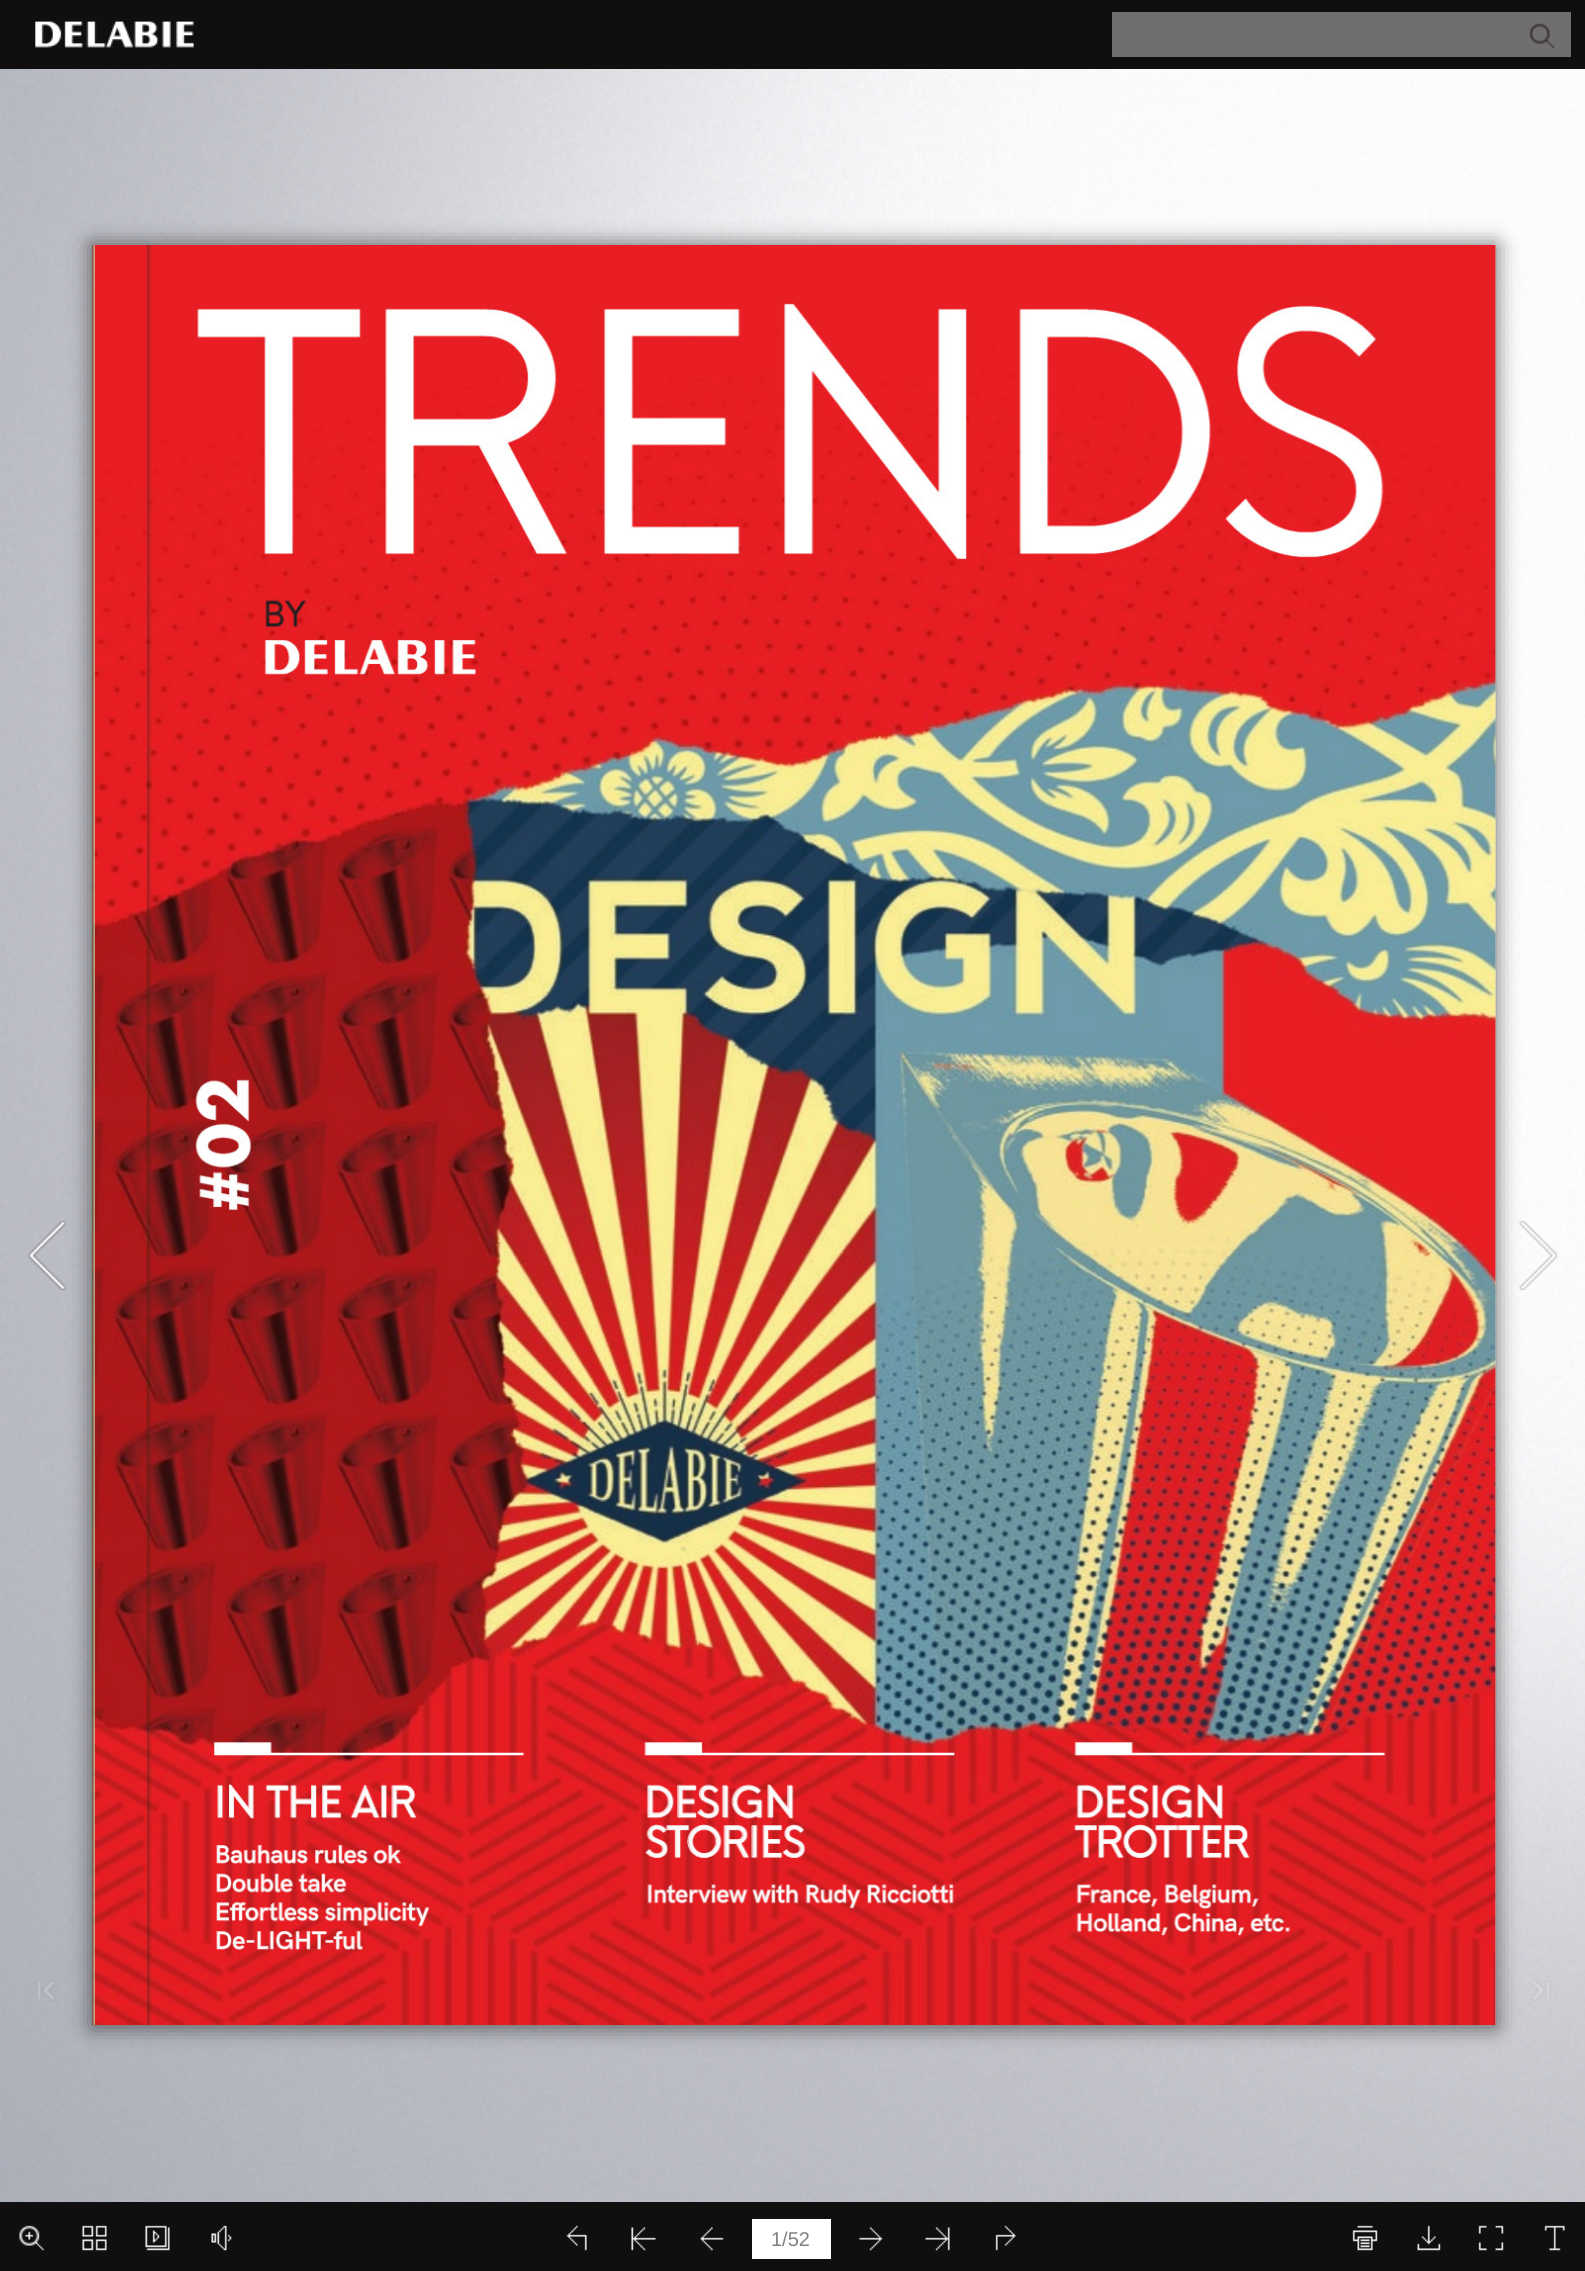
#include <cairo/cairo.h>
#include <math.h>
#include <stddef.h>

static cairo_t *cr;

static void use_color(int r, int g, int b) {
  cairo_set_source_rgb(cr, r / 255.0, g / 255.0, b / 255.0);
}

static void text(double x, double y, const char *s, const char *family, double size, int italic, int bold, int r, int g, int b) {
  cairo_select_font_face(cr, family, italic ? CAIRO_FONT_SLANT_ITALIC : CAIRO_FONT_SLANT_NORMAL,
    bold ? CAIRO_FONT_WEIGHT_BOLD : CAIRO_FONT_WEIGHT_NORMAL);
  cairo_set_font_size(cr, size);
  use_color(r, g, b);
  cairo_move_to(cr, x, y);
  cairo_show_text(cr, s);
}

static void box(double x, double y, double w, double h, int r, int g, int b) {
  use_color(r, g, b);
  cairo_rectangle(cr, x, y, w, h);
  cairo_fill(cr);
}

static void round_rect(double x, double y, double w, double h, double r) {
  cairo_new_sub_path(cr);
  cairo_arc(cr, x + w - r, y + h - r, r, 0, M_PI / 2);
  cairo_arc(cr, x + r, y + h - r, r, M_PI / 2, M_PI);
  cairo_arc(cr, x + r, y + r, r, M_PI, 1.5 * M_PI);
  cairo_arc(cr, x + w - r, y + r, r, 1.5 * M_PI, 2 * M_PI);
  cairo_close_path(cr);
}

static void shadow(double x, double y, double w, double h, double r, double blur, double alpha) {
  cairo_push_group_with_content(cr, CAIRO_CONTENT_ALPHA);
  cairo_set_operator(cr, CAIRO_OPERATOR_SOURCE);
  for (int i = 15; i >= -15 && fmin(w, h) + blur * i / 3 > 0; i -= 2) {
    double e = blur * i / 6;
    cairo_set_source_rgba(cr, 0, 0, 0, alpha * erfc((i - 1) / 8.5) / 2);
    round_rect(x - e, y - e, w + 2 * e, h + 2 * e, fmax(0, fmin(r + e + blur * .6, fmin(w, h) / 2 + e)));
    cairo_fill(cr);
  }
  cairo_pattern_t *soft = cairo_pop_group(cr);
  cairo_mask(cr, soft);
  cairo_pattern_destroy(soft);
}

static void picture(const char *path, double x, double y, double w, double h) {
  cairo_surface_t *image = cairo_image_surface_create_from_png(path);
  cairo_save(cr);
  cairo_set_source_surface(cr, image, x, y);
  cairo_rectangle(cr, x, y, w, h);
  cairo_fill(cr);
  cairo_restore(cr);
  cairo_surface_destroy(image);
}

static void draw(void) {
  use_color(255, 255, 255);
  cairo_paint(cr);
  box(0, 0, 1585, 69, 17, 14, 15);
  picture("img_01.png", 35, 21, 159, 27);
  box(1112, 12, 459, 45, 113, 110, 111);
  picture("img_02.png", 1529, 23, 26, 26);
  picture("img_03.png", 0, 69, 1585, 2133);
  use_color(40, 40, 40);
  shadow(92, 245, 1404, 1782, 0, 11, 0.7);
  picture("img_04.png", 28, 1220, 39, 71);
  box(1495, 245, 1, 1780, 192, 192, 192);
  picture("img_05.png", 92, 245, 1404, 1780);
  picture("img_06.png", 92, 2025, 1404, 1);
  picture("img_07.png", 1519, 1220, 39, 71);
  picture("img_08.png", 36, 1980, 20, 21);
  picture("img_09.png", 1532, 1980, 19, 21);
  box(0, 2202, 1585, 69, 17, 14, 15);
  picture("img_10.png", 19, 2225, 25, 26);
  picture("img_11.png", 82, 2225, 25, 26);
  picture("img_12.png", 145, 2225, 25, 26);
  picture("img_13.png", 211, 2225, 21, 26);
  picture("img_14.png", 566, 2225, 21, 26);
  picture("img_15.png", 631, 2227, 25, 24);
  picture("img_16.png", 700, 2227, 24, 24);
  box(752, 2219, 79, 40, 255, 255, 255);
  picture("img_17.png", 859, 2227, 24, 24);
  picture("img_18.png", 925, 2227, 25, 24);
  picture("img_19.png", 995, 2225, 21, 26);
  picture("img_20.png", 1352, 2225, 26, 26);
  picture("img_21.png", 1417, 2225, 24, 26);
  picture("img_22.png", 1478, 2225, 26, 26);
  picture("img_23.png", 1544, 2225, 21, 26);
  text(771, 2246, "1/52", "Liberation Sans", 20, 0, 0, 128, 128, 128);
}

int main(void) {
  cairo_surface_t *surface = cairo_image_surface_create(CAIRO_FORMAT_RGB24, 1585, 2271);
  cr = cairo_create(surface);
  cairo_font_options_t *options = cairo_font_options_create();
  cairo_font_options_set_hint_metrics(options, CAIRO_HINT_METRICS_OFF);
  cairo_font_options_set_hint_style(options, CAIRO_HINT_STYLE_NONE);
  cairo_set_font_options(cr, options);
  cairo_set_miter_limit(cr, 4);
  draw();
  cairo_surface_write_to_png(surface, "out.png");
  cairo_font_options_destroy(options);
  cairo_destroy(cr);
  cairo_surface_destroy(surface);
  return 0;
}
